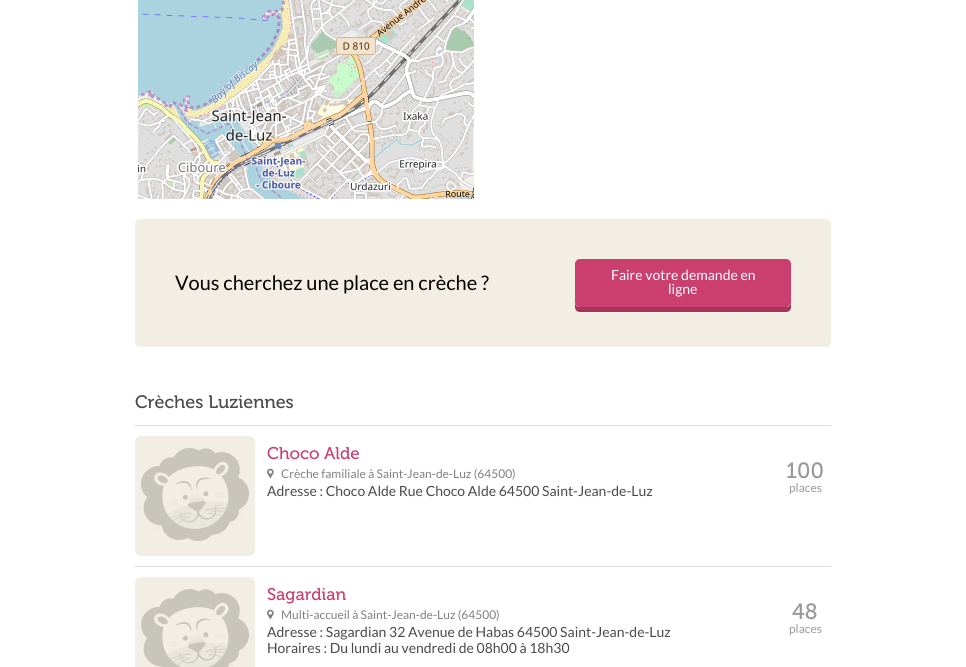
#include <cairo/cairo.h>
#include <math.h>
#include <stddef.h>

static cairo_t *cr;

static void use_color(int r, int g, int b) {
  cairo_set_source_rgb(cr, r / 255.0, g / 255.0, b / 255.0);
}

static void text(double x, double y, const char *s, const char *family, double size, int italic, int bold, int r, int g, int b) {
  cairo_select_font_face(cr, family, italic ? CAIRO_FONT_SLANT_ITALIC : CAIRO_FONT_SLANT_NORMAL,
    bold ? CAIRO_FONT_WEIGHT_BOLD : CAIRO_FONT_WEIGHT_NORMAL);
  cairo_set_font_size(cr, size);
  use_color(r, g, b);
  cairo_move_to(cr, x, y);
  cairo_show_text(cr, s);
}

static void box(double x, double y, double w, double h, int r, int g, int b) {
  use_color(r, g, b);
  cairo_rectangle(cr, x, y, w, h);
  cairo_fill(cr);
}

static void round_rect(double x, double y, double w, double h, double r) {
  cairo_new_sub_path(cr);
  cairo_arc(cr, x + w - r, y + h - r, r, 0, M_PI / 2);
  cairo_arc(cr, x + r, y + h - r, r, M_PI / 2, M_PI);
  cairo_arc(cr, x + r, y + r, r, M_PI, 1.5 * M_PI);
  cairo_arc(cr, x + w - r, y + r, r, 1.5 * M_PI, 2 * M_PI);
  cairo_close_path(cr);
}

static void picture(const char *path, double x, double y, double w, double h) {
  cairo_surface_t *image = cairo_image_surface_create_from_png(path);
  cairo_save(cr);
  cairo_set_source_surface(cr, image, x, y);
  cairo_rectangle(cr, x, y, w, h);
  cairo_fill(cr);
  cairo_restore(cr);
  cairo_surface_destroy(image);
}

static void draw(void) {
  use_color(255, 255, 255);
  cairo_paint(cr);
  picture("img_01.png", 138, 0, 336, 199);
  use_color(242, 238, 228);
  round_rect(135, 219, 696, 128, 5);
  cairo_fill(cr);
  use_color(166, 51, 90);
  cairo_new_path(cr);
  cairo_move_to(cr, 575, 302);
  cairo_line_to(cr, 575, 307);
  cairo_curve_to(cr, 575, 310, 577, 312, 580, 312);
  cairo_line_to(cr, 786, 312);
  cairo_curve_to(cr, 789, 312, 791, 310, 791, 307);
  cairo_line_to(cr, 791, 302);
  cairo_curve_to(cr, 791, 305, 789, 307, 786, 307);
  cairo_line_to(cr, 580, 307);
  cairo_curve_to(cr, 577, 307, 575, 305, 575, 302);
  cairo_close_path(cr);
  cairo_fill(cr);
  use_color(202, 63, 110);
  round_rect(575, 259, 216, 48, 5);
  cairo_fill(cr);
  box(135, 425, 696, 1, 223, 223, 223);
  box(135, 566, 696, 1, 223, 223, 223);
  picture("img_02.png", 135, 436, 120, 120);
  picture("img_03.png", 267, 468, 7, 11);
  picture("img_04.png", 135, 577, 120, 90);
  picture("img_03.png", 267, 609, 7, 11);
  text(175, 290, "Vous cherchez une place en crèche ?", "Lato", 20, 0, 0, 0, 0, 0);
  text(611, 280, "Faire votre demande en", "Lato", 14, 0, 0, 255, 255, 255);
  text(668, 294, "ligne", "Lato", 14, 0, 0, 255, 255, 255);
  text(135, 408, "Crèches Luziennes", "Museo", 18, 0, 0, 74, 74, 76);
  text(267, 459, "Choco Alde", "Museo", 17, 0, 0, 202, 63, 110);
  text(281, 478, "Crèche familiale à Saint-Jean-de-Luz (64500)", "Lato", 12, 0, 0, 128, 128, 128);
  text(786, 478, "100", "Museo", 22, 0, 0, 153, 153, 153);
  text(789, 492, "places", "Lato", 12, 0, 0, 153, 153, 153);
  text(267, 496, "Adresse : Choco Alde Rue Choco Alde 64500 Saint-Jean-de-Luz", "Lato", 14, 0, 0, 74, 74, 76);
  text(267, 600, "Sagardian", "Museo", 17, 0, 0, 202, 63, 110);
  text(281, 619, "Multi-accueil à Saint-Jean-de-Luz (64500)", "Lato", 12, 0, 0, 128, 128, 128);
  text(792, 619, "48", "Museo", 22, 0, 0, 153, 153, 153);
  text(789, 633, "places", "Lato", 12, 0, 0, 153, 153, 153);
  text(267, 637, "Adresse : Sagardian 32 Avenue de Habas 64500 Saint-Jean-de-Luz", "Lato", 14, 0, 0, 74, 74, 76);
  text(267, 653, "Horaires : Du lundi au vendredi de 08h00 à 18h30", "Lato", 14, 0, 0, 74, 74, 76);
}

int main(void) {
  cairo_surface_t *surface = cairo_image_surface_create(CAIRO_FORMAT_RGB24, 966, 667);
  cr = cairo_create(surface);
  cairo_font_options_t *options = cairo_font_options_create();
  cairo_font_options_set_hint_metrics(options, CAIRO_HINT_METRICS_OFF);
  cairo_font_options_set_hint_style(options, CAIRO_HINT_STYLE_NONE);
  cairo_set_font_options(cr, options);
  cairo_set_miter_limit(cr, 4);
  draw();
  cairo_surface_write_to_png(surface, "out.png");
  cairo_font_options_destroy(options);
  cairo_destroy(cr);
  cairo_surface_destroy(surface);
  return 0;
}
